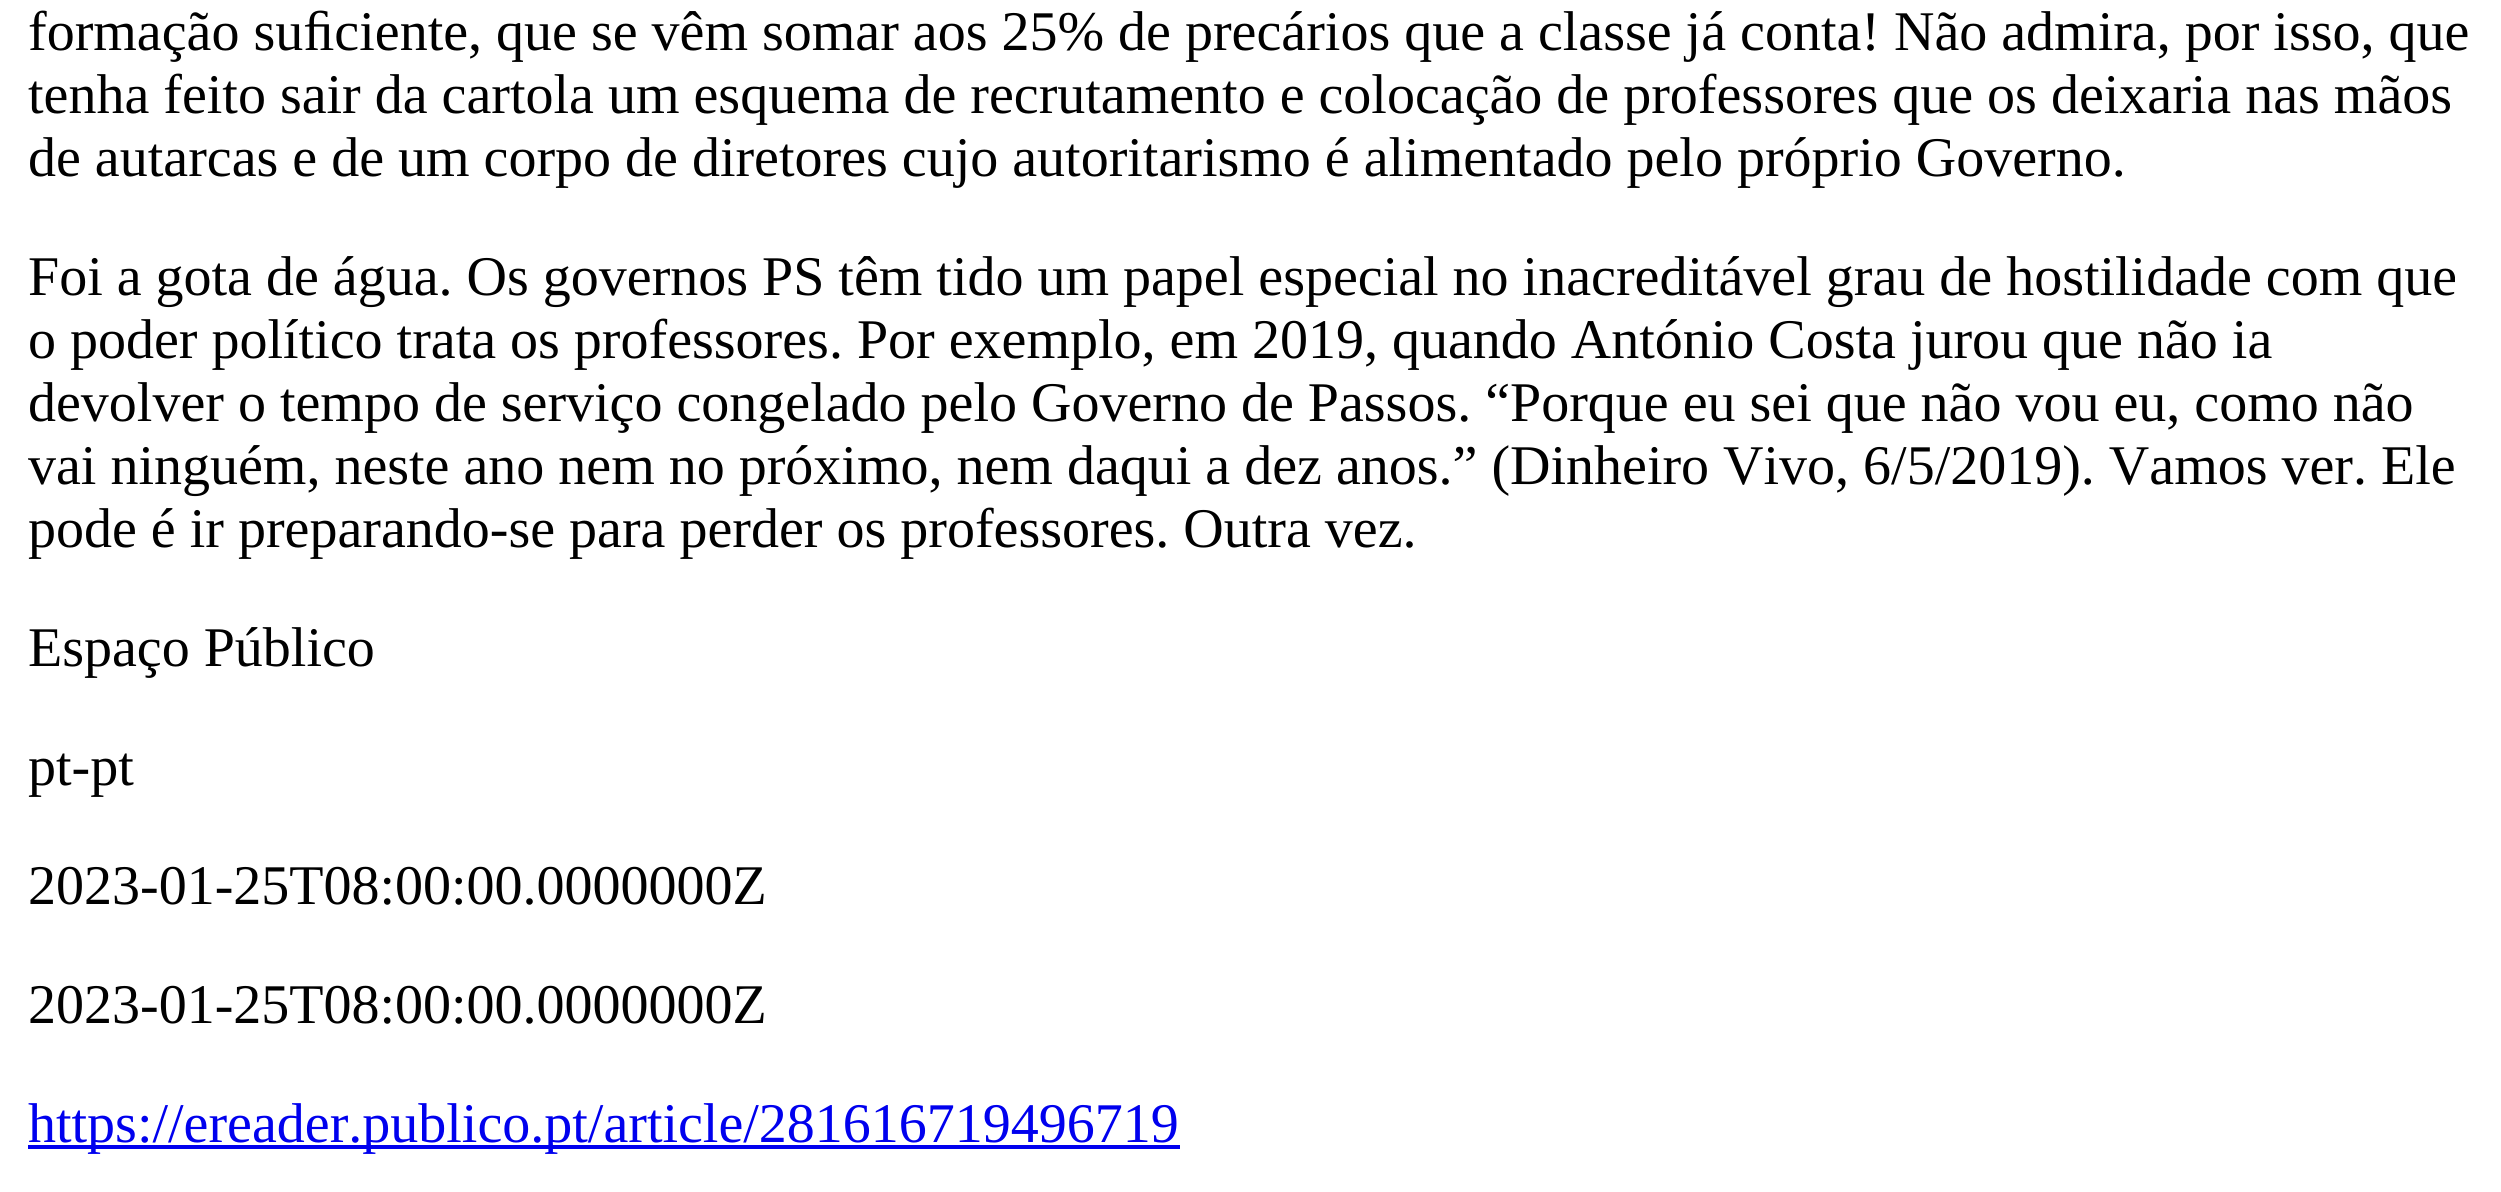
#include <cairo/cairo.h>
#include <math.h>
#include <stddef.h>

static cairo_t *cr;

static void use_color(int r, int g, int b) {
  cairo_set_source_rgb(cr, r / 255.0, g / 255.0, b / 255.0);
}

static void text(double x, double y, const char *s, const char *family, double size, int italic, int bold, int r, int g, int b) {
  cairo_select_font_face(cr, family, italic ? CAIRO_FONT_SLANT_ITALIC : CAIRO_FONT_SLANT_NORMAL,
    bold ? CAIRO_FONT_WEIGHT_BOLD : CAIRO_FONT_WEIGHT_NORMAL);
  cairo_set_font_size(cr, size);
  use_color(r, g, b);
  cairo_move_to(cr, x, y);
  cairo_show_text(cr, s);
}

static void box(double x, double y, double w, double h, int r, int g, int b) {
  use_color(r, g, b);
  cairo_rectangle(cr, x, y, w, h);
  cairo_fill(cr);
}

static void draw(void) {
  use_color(255, 255, 255);
  cairo_paint(cr);
  box(28, 1145, 1152, 4, 0, 0, 238);
  text(28, 50, "formação suﬁciente, que se vêm somar aos 25% de precários que a classe já conta! Não admira, por isso, que", "Liberation Serif", 56, 0, 0, 0, 0, 0);
  text(28, 113, "tenha feito sair da cartola um esquema de recrutamento e colocação de professores que os deixaria nas mãos", "Liberation Serif", 56, 0, 0, 0, 0, 0);
  text(28, 176, "de autarcas e de um corpo de diretores cujo autoritarismo é alimentado pelo próprio Governo.", "Liberation Serif", 56, 0, 0, 0, 0, 0);
  text(28, 295, "Foi a gota de água. Os governos PS têm tido um papel especial no inacreditável grau de hostilidade com que", "Liberation Serif", 56, 0, 0, 0, 0, 0);
  text(28, 358, "o poder político trata os professores. Por exemplo, em 2019, quando António Costa jurou que não ia", "Liberation Serif", 56, 0, 0, 0, 0, 0);
  text(28, 421, "devolver o tempo de serviço congelado pelo Governo de Passos. “Porque eu sei que não vou eu, como não", "Liberation Serif", 56, 0, 0, 0, 0, 0);
  text(28, 484, "vai ninguém, neste ano nem no próximo, nem daqui a dez anos.” (Dinheiro Vivo, 6/5/2019). Vamos ver. Ele", "Liberation Serif", 56, 0, 0, 0, 0, 0);
  text(28, 547, "pode é ir preparando-se para perder os professores. Outra vez.", "Liberation Serif", 56, 0, 0, 0, 0, 0);
  text(28, 666, "Espaço Público", "Liberation Serif", 56, 0, 0, 0, 0, 0);
  text(28, 785, "pt-pt", "Liberation Serif", 56, 0, 0, 0, 0, 0);
  text(28, 904, "2023-01-25T08:00:00.0000000Z", "Liberation Serif", 56, 0, 0, 0, 0, 0);
  text(28, 1023, "2023-01-25T08:00:00.0000000Z", "Liberation Serif", 56, 0, 0, 0, 0, 0);
  text(28, 1142, "https://ereader.publico.pt/article/281616719496719", "Liberation Serif", 56, 0, 0, 0, 0, 238);
}

int main(void) {
  cairo_surface_t *surface = cairo_image_surface_create(CAIRO_FORMAT_RGB24, 2501, 1192);
  cr = cairo_create(surface);
  cairo_font_options_t *options = cairo_font_options_create();
  cairo_font_options_set_hint_metrics(options, CAIRO_HINT_METRICS_OFF);
  cairo_font_options_set_hint_style(options, CAIRO_HINT_STYLE_NONE);
  cairo_set_font_options(cr, options);
  cairo_set_miter_limit(cr, 4);
  draw();
  cairo_surface_write_to_png(surface, "out.png");
  cairo_font_options_destroy(options);
  cairo_destroy(cr);
  cairo_surface_destroy(surface);
  return 0;
}
